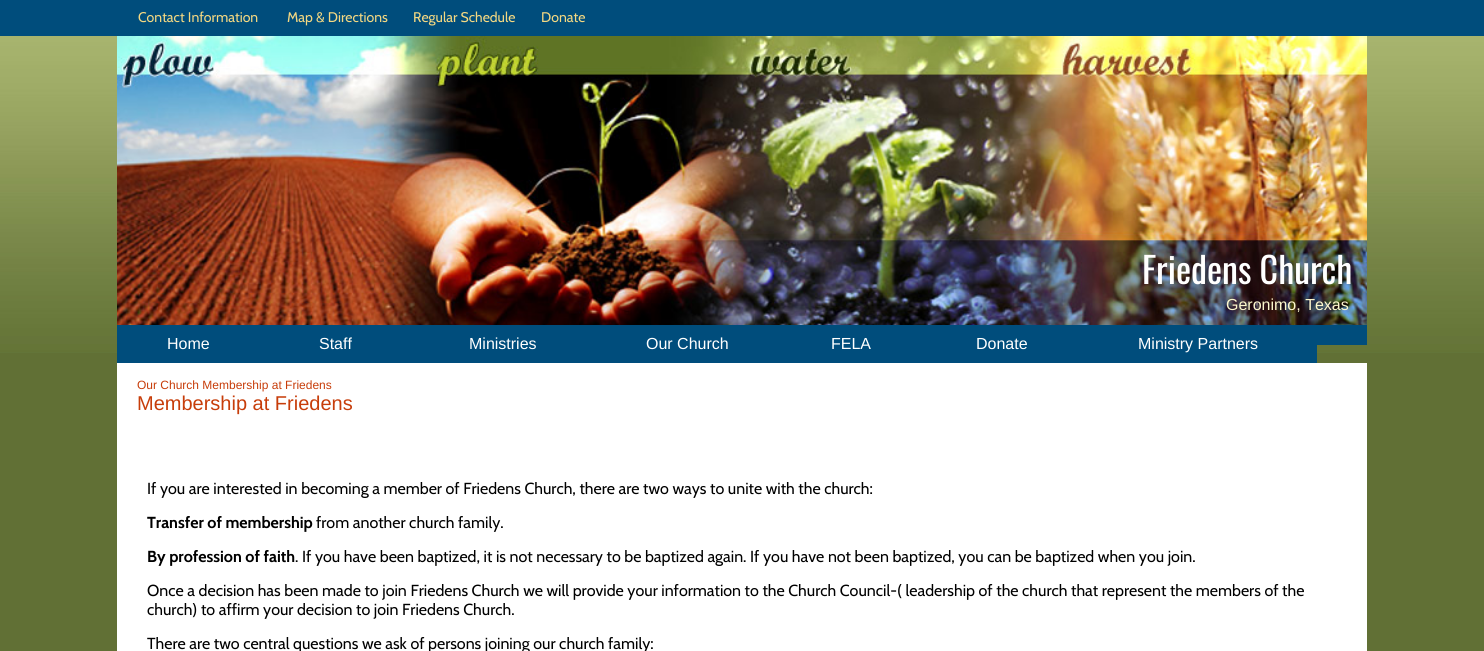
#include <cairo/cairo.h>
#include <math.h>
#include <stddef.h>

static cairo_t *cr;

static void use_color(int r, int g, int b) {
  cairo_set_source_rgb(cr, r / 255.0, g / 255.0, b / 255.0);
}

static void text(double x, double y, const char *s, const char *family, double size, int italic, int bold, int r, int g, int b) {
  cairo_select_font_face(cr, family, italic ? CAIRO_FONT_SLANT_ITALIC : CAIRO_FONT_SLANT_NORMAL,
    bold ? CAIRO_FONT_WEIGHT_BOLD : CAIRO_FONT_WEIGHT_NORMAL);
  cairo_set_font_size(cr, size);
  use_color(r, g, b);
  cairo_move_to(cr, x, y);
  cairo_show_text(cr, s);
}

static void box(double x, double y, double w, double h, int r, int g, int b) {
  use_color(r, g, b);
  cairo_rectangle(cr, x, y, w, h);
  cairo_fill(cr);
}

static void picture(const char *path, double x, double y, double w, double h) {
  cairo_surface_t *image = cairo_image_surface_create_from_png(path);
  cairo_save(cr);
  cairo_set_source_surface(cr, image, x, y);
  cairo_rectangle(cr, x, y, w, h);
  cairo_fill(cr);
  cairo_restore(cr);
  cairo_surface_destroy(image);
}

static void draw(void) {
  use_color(97, 112, 53);
  cairo_paint(cr);
  picture("img_01.png", 0, 36, 1484, 317);
  box(0, 0, 1484, 36, 0, 77, 124);
  picture("img_02.png", 117, 36, 1250, 289);
  box(117, 325, 1200, 38, 0, 77, 124);
  box(1317, 325, 50, 20, 0, 77, 124);
  box(117, 363, 1250, 288, 255, 255, 255);
  text(138, 22, "Contact Information", "Cabin", 14, 0, 0, 244, 216, 130);
  text(287, 22, "Map & Directions", "Cabin", 14, 0, 0, 244, 216, 130);
  text(413, 22, "Regular Schedule", "Cabin", 14, 0, 0, 244, 216, 130);
  text(541, 22, "Donate", "Cabin", 14, 0, 0, 244, 216, 130);
  text(1142, 284, "Friedens Church", "Oswald", 36, 0, 0, 255, 255, 255);
  text(1226, 310, "Geronimo, Texas", "Liberation Sans", 16, 0, 0, 253, 248, 206);
  text(167, 349, "Home", "Liberation Sans", 16, 0, 0, 255, 255, 255);
  text(319, 349, "Staff", "Liberation Sans", 16, 0, 0, 255, 255, 255);
  text(469, 349, "Ministries", "Liberation Sans", 16, 0, 0, 255, 255, 255);
  text(646, 349, "Our Church", "Liberation Sans", 16, 0, 0, 255, 255, 255);
  text(831, 349, "FELA", "Liberation Sans", 16, 0, 0, 255, 255, 255);
  text(976, 349, "Donate", "Liberation Sans", 16, 0, 0, 255, 255, 255);
  text(1138, 349, "Ministry Partners", "Liberation Sans", 16, 0, 0, 255, 255, 255);
  text(137, 389, "Our Church Membership at Friedens", "Liberation Sans", 12, 0, 0, 199, 61, 10);
  text(137, 410, "Membership at Friedens", "Liberation Sans", 20, 0, 0, 199, 61, 10);
  text(147, 494, "If you are interested in becoming a member of Friedens Church, there are two ways to unite with the church:", "Cabin", 16, 0, 0, 0, 0, 0);
  text(147, 528, "Transfer of membership", "Cabin", 16, 0, 1, 0, 0, 0);
  text(316, 528, "from another church family.", "Cabin", 16, 0, 0, 0, 0, 0);
  text(147, 562, "By profession of faith", "Cabin", 16, 0, 1, 0, 0, 0);
  text(295, 562, ". If you have been baptized, it is not necessary to be baptized again. If you have not been baptized, you can be baptized when you join.", "Cabin", 16, 0, 0, 0, 0, 0);
  text(147, 596, "Once a decision has been made to join Friedens Church we will provide your information to the Church Council-( leadership of the church that represent the members of the", "Cabin", 16, 0, 0, 0, 0, 0);
  text(147, 615, "church) to affirm your decision to join Friedens Church.", "Cabin", 16, 0, 0, 0, 0, 0);
  text(147, 649, "There are two central questions we ask of persons joining our church family:", "Cabin", 16, 0, 0, 0, 0, 0);
}

int main(void) {
  cairo_surface_t *surface = cairo_image_surface_create(CAIRO_FORMAT_RGB24, 1484, 651);
  cr = cairo_create(surface);
  cairo_font_options_t *options = cairo_font_options_create();
  cairo_font_options_set_hint_metrics(options, CAIRO_HINT_METRICS_OFF);
  cairo_font_options_set_hint_style(options, CAIRO_HINT_STYLE_NONE);
  cairo_set_font_options(cr, options);
  cairo_set_miter_limit(cr, 4);
  draw();
  cairo_surface_write_to_png(surface, "out.png");
  cairo_font_options_destroy(options);
  cairo_destroy(cr);
  cairo_surface_destroy(surface);
  return 0;
}
